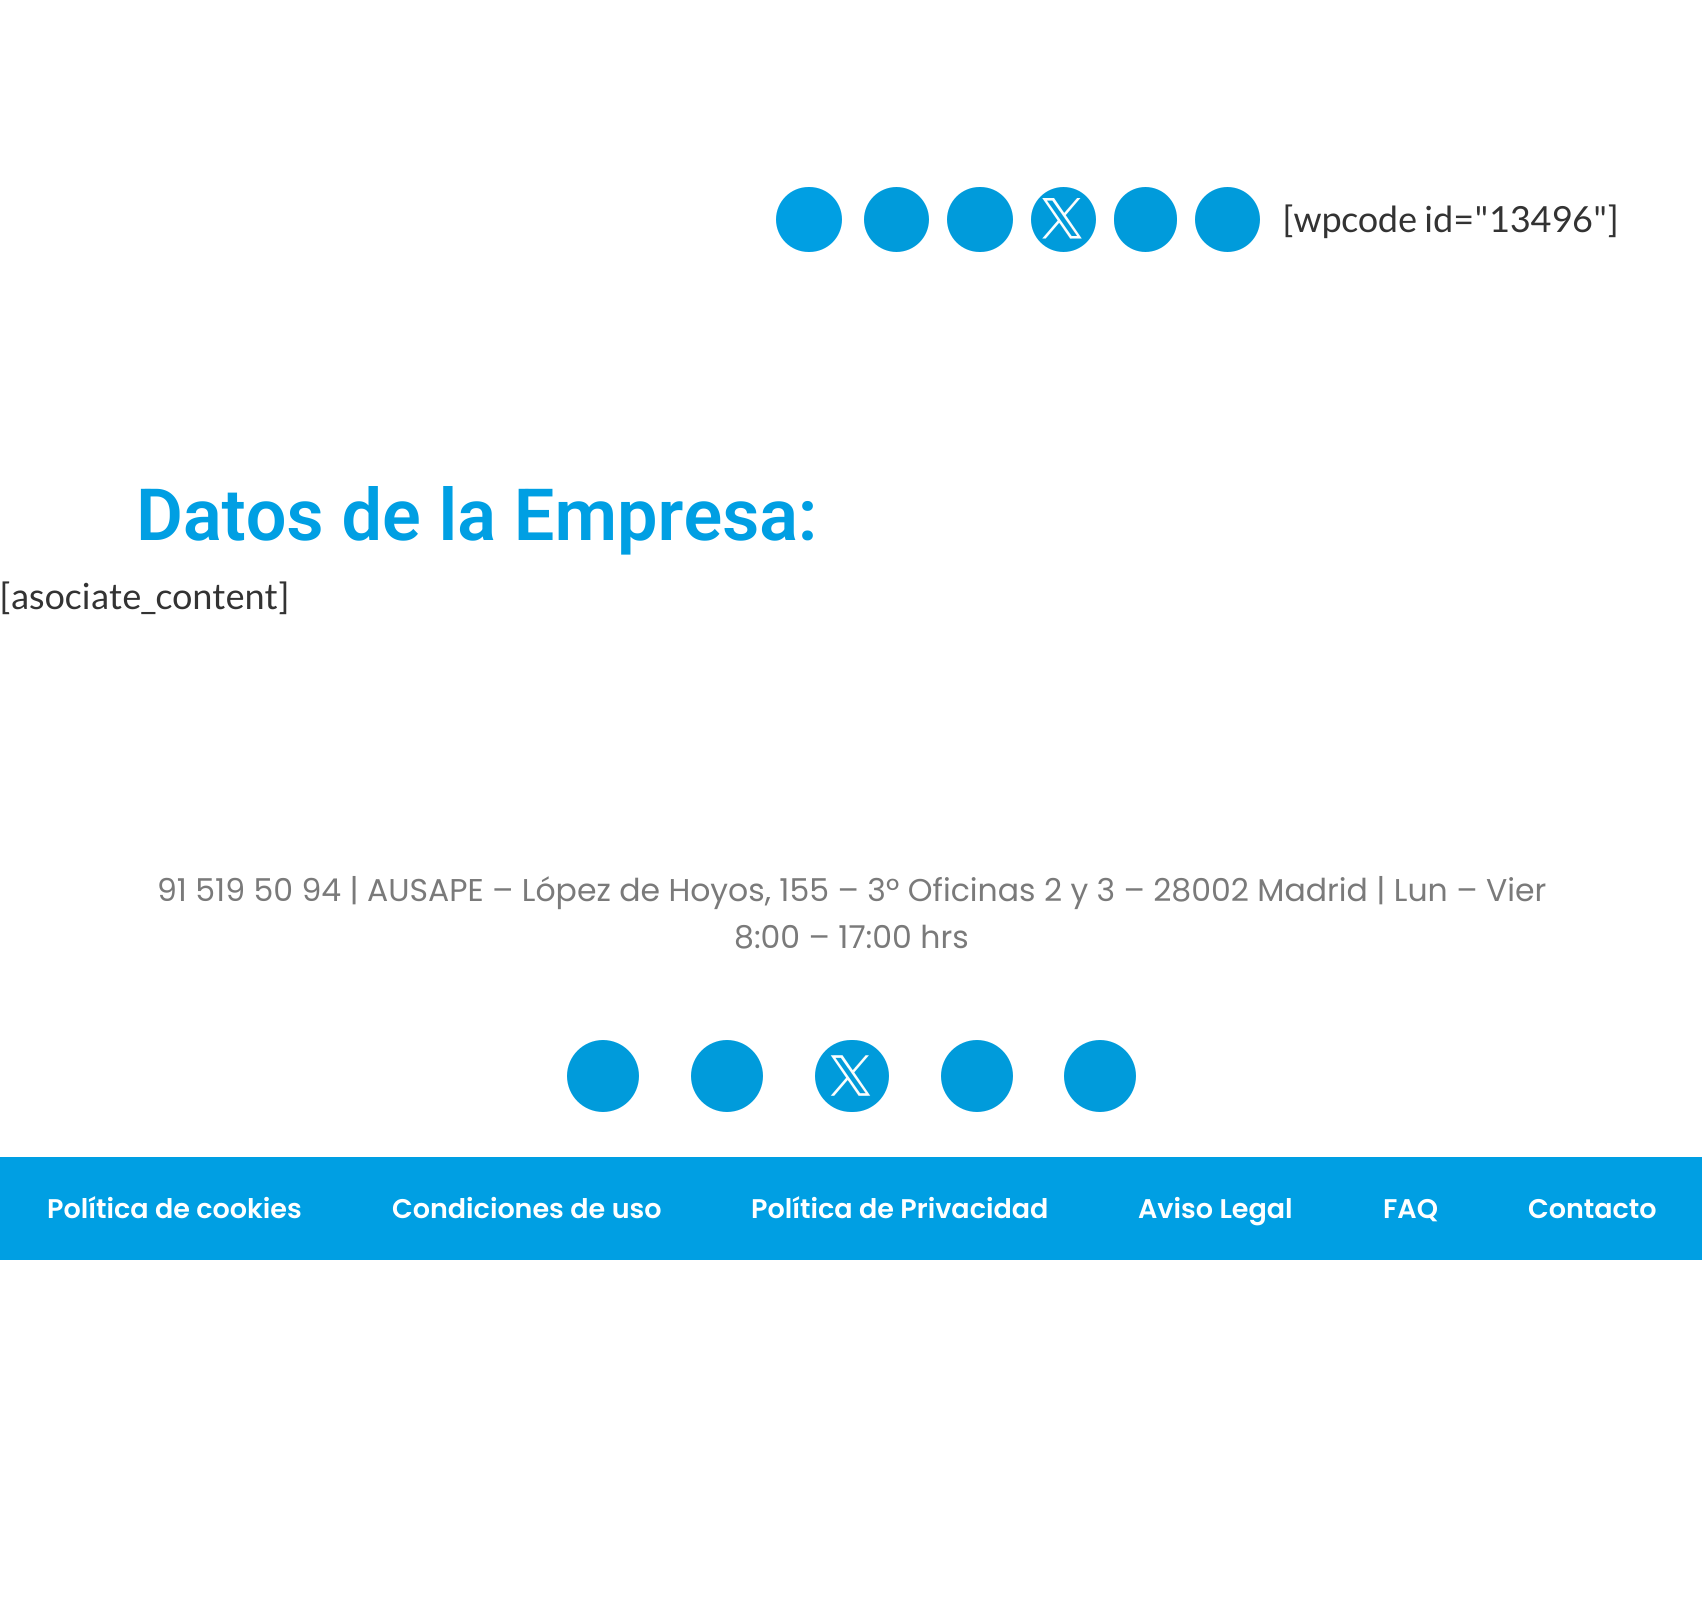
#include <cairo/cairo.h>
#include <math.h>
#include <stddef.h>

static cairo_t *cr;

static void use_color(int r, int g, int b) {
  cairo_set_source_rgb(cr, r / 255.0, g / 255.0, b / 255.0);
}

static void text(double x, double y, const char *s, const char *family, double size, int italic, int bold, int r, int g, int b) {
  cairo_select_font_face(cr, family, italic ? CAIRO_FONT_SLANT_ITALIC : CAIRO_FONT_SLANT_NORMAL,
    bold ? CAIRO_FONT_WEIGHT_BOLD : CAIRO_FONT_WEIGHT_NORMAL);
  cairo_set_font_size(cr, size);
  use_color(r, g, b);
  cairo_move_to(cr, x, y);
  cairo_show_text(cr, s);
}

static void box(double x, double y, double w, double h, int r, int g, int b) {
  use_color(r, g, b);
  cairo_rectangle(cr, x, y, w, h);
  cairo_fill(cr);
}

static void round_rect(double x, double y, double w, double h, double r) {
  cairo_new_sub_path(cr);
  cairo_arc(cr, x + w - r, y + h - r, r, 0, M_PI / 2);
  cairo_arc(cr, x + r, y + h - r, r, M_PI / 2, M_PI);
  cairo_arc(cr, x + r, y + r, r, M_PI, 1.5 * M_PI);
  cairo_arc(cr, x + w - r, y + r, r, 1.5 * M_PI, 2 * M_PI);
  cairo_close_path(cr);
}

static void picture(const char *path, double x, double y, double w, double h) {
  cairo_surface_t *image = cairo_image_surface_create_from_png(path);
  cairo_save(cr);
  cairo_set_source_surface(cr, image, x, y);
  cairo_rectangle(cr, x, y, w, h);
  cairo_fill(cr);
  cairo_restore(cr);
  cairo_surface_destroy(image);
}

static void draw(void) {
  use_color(255, 255, 255);
  cairo_paint(cr);
  use_color(0, 159, 227);
  round_rect(776, 187, 66, 65, 32.5);
  cairo_fill(cr);
  use_color(0, 155, 219);
  cairo_arc(cr, 896.5, 219.5, 32.5, 0, 2 * M_PI);
  cairo_fill(cr);
  round_rect(947, 187, 66, 65, 32.5);
  cairo_fill(cr);
  cairo_arc(cr, 1063.5, 219.5, 32.5, 0, 2 * M_PI);
  cairo_fill(cr);
  picture("img_01.png", 1042, 198, 40, 41);
  round_rect(1114, 187, 63, 65, 31.5);
  cairo_fill(cr);
  cairo_arc(cr, 1227.5, 219.5, 32.5, 0, 2 * M_PI);
  cairo_fill(cr);
  cairo_arc(cr, 603, 1076, 36, 0, 2 * M_PI);
  cairo_fill(cr);
  cairo_arc(cr, 727, 1076, 36, 0, 2 * M_PI);
  cairo_fill(cr);
  round_rect(815, 1040, 74, 72, 36);
  cairo_fill(cr);
  picture("img_02.png", 830, 1055, 41, 41);
  cairo_arc(cr, 977, 1076, 36, 0, 2 * M_PI);
  cairo_fill(cr);
  cairo_arc(cr, 1100, 1076, 36, 0, 2 * M_PI);
  cairo_fill(cr);
  box(0, 1157, 1702, 103, 0, 159, 227);
  text(1283, 232, "[wpcode id=\"13496\"]", "Lato", 36, 0, 0, 51, 51, 51);
  text(136, 540, "Datos de la Empresa:", "Roboto SemiBold", 72, 0, 0, 0, 159, 227);
  text(0, 609, "[asociate_content]", "Lato", 36, 0, 0, 51, 51, 51);
  text(157, 901, "91 519 50 94 | AUSAPE – López de Hoyos, 155 – 3º Oficinas 2 y 3 – 28002 Madrid | Lun – Vier", "Poppins", 31.5, 0, 0, 122, 122, 122);
  text(734, 948, "8:00 – 17:00 hrs", "Poppins", 31.5, 0, 0, 122, 122, 122);
  text(47, 1218, "Política de cookies", "Poppins SemiBold", 27, 0, 0, 255, 255, 255);
  text(392, 1218, "Condiciones de uso", "Poppins SemiBold", 27, 0, 0, 255, 255, 255);
  text(751, 1218, "Política de Privacidad", "Poppins SemiBold", 27, 0, 0, 255, 255, 255);
  text(1138, 1218, "Aviso Legal", "Poppins SemiBold", 27, 0, 0, 255, 255, 255);
  text(1383, 1218, "FAQ", "Poppins SemiBold", 27, 0, 0, 255, 255, 255);
  text(1528, 1218, "Contacto", "Poppins SemiBold", 27, 0, 0, 255, 255, 255);
}

int main(void) {
  cairo_surface_t *surface = cairo_image_surface_create(CAIRO_FORMAT_RGB24, 1702, 1603);
  cr = cairo_create(surface);
  cairo_font_options_t *options = cairo_font_options_create();
  cairo_font_options_set_hint_metrics(options, CAIRO_HINT_METRICS_OFF);
  cairo_font_options_set_hint_style(options, CAIRO_HINT_STYLE_NONE);
  cairo_set_font_options(cr, options);
  cairo_set_miter_limit(cr, 4);
  draw();
  cairo_surface_write_to_png(surface, "out.png");
  cairo_font_options_destroy(options);
  cairo_destroy(cr);
  cairo_surface_destroy(surface);
  return 0;
}
